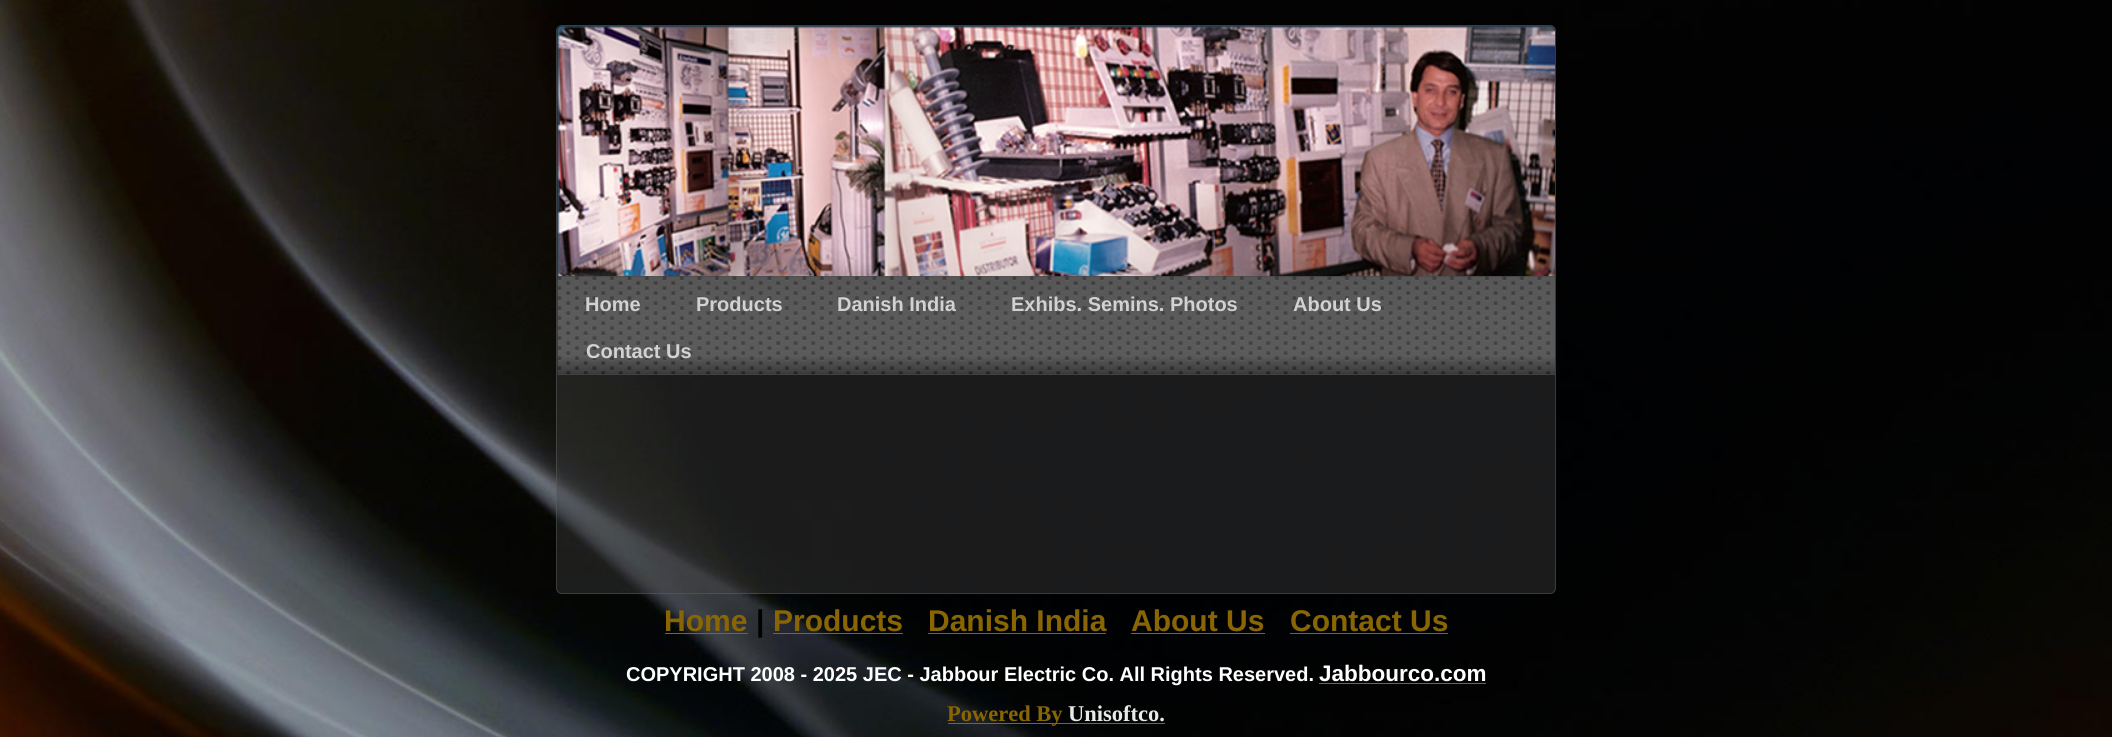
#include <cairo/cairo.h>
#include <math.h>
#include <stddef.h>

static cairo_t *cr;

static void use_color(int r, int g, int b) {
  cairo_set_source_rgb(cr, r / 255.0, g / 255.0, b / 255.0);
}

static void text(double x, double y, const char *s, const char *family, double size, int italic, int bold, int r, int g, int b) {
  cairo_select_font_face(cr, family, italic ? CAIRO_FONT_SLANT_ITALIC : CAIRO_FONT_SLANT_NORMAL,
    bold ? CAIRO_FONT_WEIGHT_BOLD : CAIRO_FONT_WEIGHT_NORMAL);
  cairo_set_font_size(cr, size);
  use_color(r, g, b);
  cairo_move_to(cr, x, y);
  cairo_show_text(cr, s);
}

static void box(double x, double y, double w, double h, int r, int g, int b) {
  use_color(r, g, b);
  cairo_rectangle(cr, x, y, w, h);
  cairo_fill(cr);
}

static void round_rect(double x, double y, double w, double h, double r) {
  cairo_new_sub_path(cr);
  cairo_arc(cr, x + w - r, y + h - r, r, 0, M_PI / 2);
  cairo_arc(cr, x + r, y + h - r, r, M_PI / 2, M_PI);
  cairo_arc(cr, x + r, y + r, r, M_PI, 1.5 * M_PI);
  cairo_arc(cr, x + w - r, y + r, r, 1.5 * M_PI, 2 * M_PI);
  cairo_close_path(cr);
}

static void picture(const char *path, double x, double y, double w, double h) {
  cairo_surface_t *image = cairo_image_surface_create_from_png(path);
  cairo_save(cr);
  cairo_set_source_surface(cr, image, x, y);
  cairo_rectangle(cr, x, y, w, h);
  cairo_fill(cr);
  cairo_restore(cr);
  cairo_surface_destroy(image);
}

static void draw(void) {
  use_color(255, 255, 255);
  cairo_paint(cr);
  picture("img_01.png", 0, 0, 2112, 737);
  cairo_set_source_rgba(cr, 0.255, 0.255, 0.255, 0.4);
  round_rect(556, 25, 1000, 569, 6);
  cairo_fill(cr);
  round_rect(556.5, 25.5, 999, 568, 5.5);
  cairo_set_source_rgba(cr, 0.427, 0.427, 0.427, 0.4);
  cairo_set_line_width(cr, 1);
  cairo_stroke(cr);
  picture("img_02.png", 557, 26, 998, 251);
  picture("img_03.png", 557, 276, 998, 99);
  box(558, 374, 997, 1, 65, 65, 65);
  box(665, 633, 83, 1, 137, 102, 3);
  box(773, 633, 130, 1, 137, 102, 3);
  box(928, 633, 178, 1, 137, 102, 3);
  box(1131, 633, 134, 1, 137, 102, 3);
  box(1290, 633, 158, 1, 137, 102, 3);
  box(1319, 683, 167, 1, 137, 102, 3);
  box(948, 723, 217, 1, 137, 102, 3);
  text(585, 311, "Home", "Liberation Sans", 20, 0, 1, 210, 210, 210);
  text(696, 311, "Products", "Liberation Sans", 20, 0, 1, 210, 210, 210);
  text(837, 311, "Danish India", "Liberation Sans", 20, 0, 1, 210, 210, 210);
  text(1011, 311, "Exhibs. Semins. Photos", "Liberation Sans", 20, 0, 1, 210, 210, 210);
  text(1293, 311, "About Us", "Liberation Sans", 20, 0, 1, 210, 210, 210);
  text(586, 358, "Contact Us", "Liberation Sans", 20, 0, 1, 210, 210, 210);
  text(664, 631, "Home", "Liberation Sans", 30, 0, 1, 137, 102, 3);
  text(756, 631, "|", "Liberation Sans", 30, 0, 1, 0, 0, 0);
  text(773, 631, "Products", "Liberation Sans", 30, 0, 1, 137, 102, 3);
  text(928, 631, "Danish India", "Liberation Sans", 30, 0, 1, 137, 102, 3);
  text(1131, 631, "About Us", "Liberation Sans", 30, 0, 1, 137, 102, 3);
  text(1290, 631, "Contact Us", "Liberation Sans", 30, 0, 1, 137, 102, 3);
  text(626, 681, "COPYRIGHT 2008 - 2025 JEC - Jabbour Electric Co. All Rights Reserved.", "Liberation Sans", 20, 0, 1, 255, 255, 255);
  text(1319, 681, "Jabbourco.com", "Liberation Sans", 22.5, 0, 1, 255, 255, 255);
  text(947, 721, "Powered By", "Liberation Serif", 22.5, 0, 1, 137, 102, 3);
  text(1068, 721, "Unisoftco.", "Liberation Serif", 22.5, 0, 1, 233, 233, 233);
}

int main(void) {
  cairo_surface_t *surface = cairo_image_surface_create(CAIRO_FORMAT_RGB24, 2112, 737);
  cr = cairo_create(surface);
  cairo_font_options_t *options = cairo_font_options_create();
  cairo_font_options_set_hint_metrics(options, CAIRO_HINT_METRICS_OFF);
  cairo_font_options_set_hint_style(options, CAIRO_HINT_STYLE_NONE);
  cairo_set_font_options(cr, options);
  cairo_set_miter_limit(cr, 4);
  draw();
  cairo_surface_write_to_png(surface, "out.png");
  cairo_font_options_destroy(options);
  cairo_destroy(cr);
  cairo_surface_destroy(surface);
  return 0;
}
